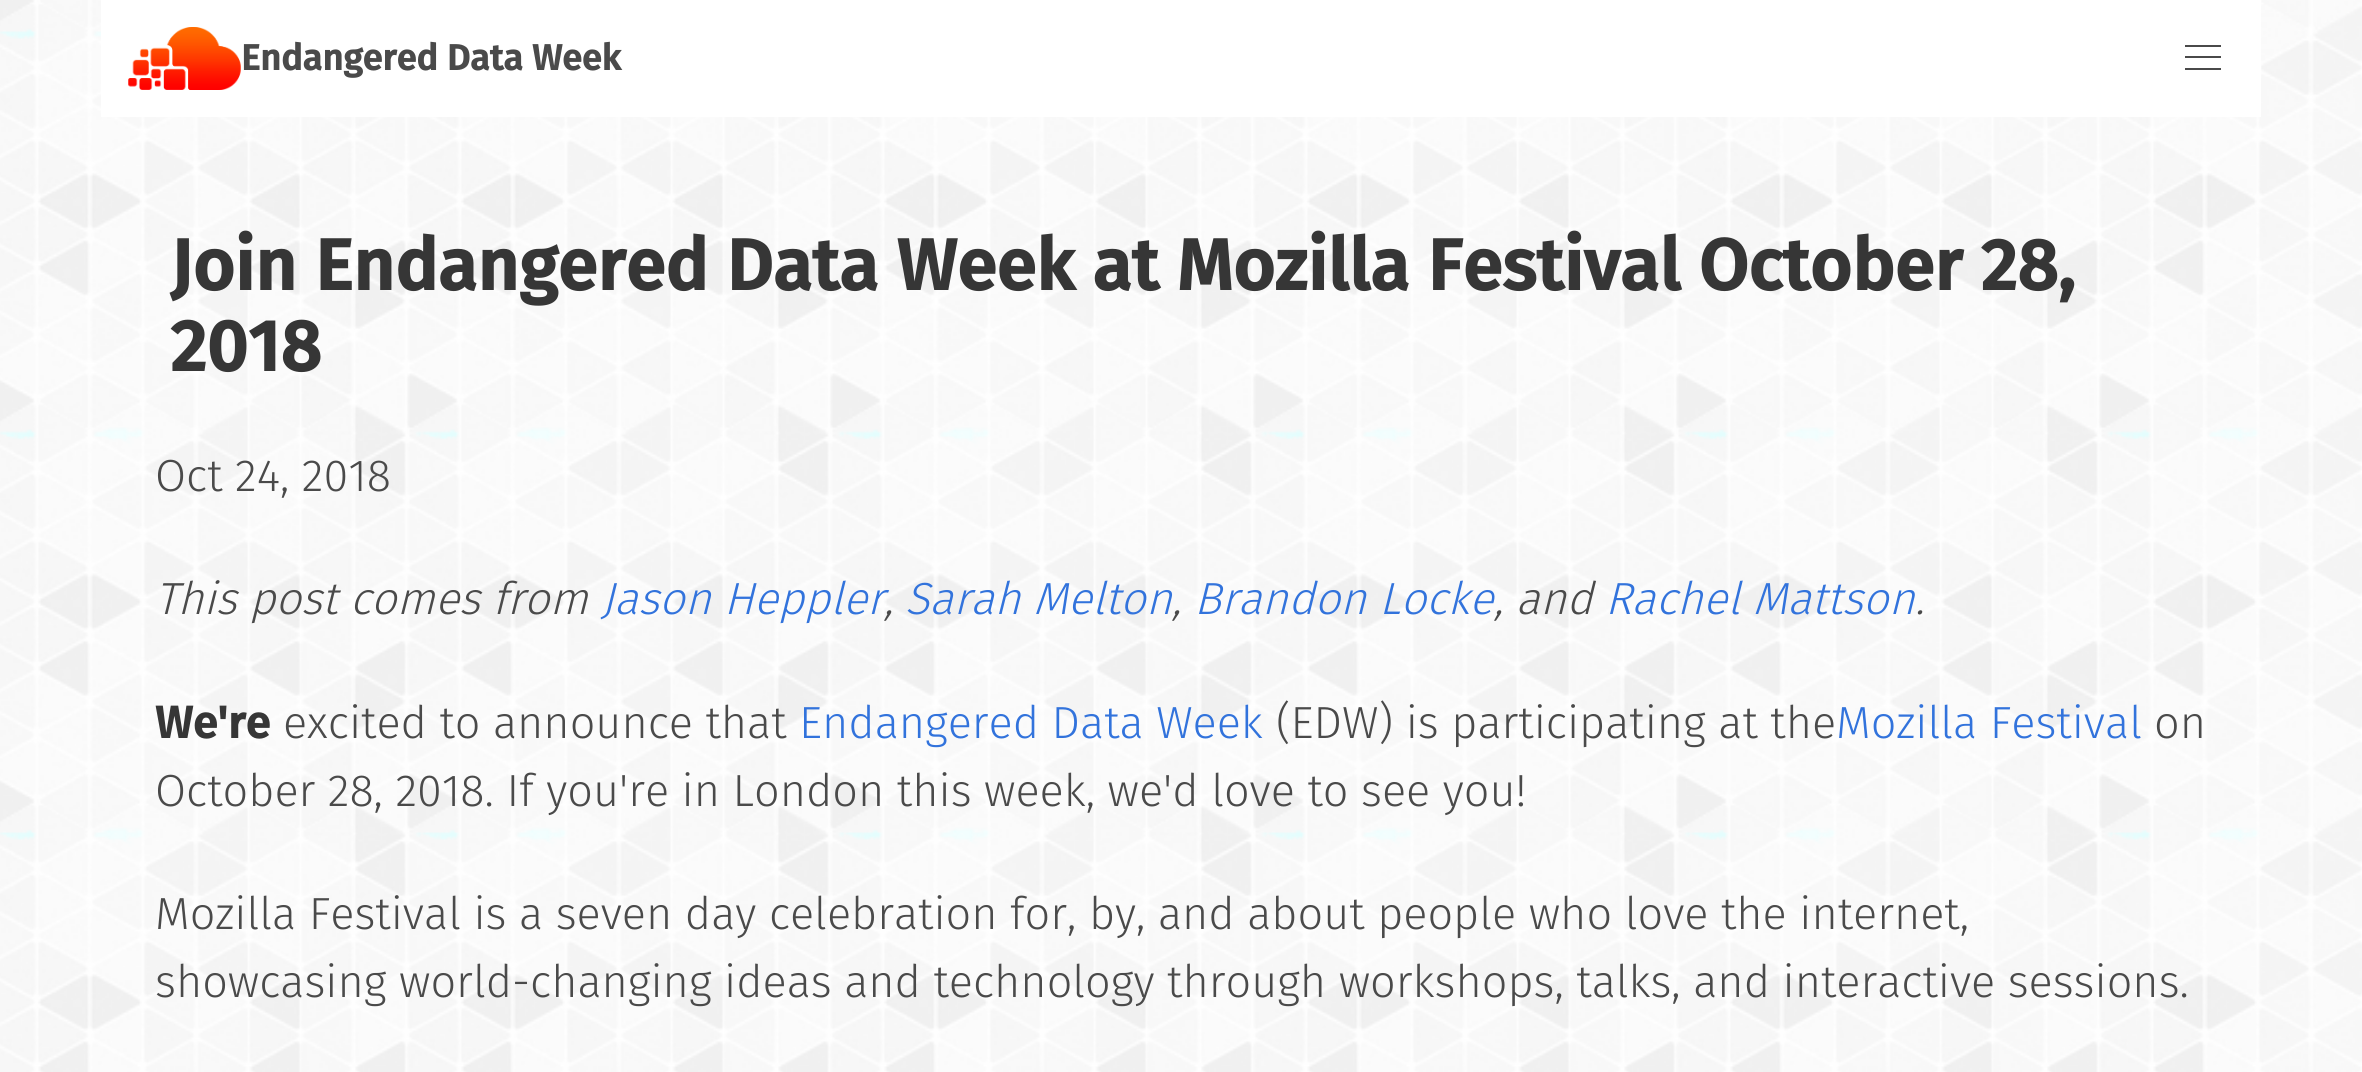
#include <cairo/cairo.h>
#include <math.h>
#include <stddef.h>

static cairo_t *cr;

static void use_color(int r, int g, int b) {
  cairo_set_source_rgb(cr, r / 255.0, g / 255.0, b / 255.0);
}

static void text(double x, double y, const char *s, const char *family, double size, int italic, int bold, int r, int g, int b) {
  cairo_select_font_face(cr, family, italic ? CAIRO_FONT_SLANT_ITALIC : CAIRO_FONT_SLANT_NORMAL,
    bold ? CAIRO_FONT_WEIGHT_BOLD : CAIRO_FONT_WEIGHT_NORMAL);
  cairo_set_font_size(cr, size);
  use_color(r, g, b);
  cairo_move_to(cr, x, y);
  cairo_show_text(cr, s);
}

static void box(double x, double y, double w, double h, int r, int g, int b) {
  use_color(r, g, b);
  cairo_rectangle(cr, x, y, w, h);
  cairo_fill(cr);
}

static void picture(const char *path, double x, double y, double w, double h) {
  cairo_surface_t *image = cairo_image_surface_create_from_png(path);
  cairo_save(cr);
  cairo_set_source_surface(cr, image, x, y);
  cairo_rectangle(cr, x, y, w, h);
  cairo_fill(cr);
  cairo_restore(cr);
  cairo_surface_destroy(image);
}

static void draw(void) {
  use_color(255, 255, 255);
  cairo_paint(cr);
  picture("img_01.png", 0, 0, 2362, 1072);
  box(101, 0, 2160, 117, 255, 255, 255);
  picture("img_02.png", 128, 27, 113, 63);
  box(2185, 45, 36, 2, 74, 74, 74);
  box(2185, 56, 36, 2, 74, 74, 74);
  box(2185, 68, 36, 2, 74, 74, 74);
  text(241, 70, "Endangered Data Week", "Fira Sans", 36, 0, 1, 74, 74, 74);
  text(170, 290, "Join Endangered Data Week at Mozilla Festival October 28,", "Fira Sans", 72, 0, 1, 54, 54, 54);
  text(170, 371, "2018", "Fira Sans", 72, 0, 1, 54, 54, 54);
  text(155, 491, "Oct 24, 2018", "Fira Sans Light", 45, 0, 0, 74, 74, 74);
  text(155, 614, "This post comes from", "Fira Sans Light", 45, 1, 0, 74, 74, 74);
  text(601, 614, "Jason Heppler", "Fira Sans Light", 45, 1, 0, 50, 115, 220);
  text(905, 614, "Sarah Melton", "Fira Sans Light", 45, 1, 0, 50, 115, 220);
  text(1194, 614, "Brandon Locke", "Fira Sans Light", 45, 1, 0, 50, 115, 220);
  text(1494, 614, ", and", "Fira Sans Light", 45, 1, 0, 74, 74, 74);
  text(1605, 614, "Rachel Mattson", "Fira Sans Light", 45, 1, 0, 50, 115, 220);
  text(884, 614, ",", "Fira Sans Light", 45, 1, 0, 74, 74, 74);
  text(1172, 614, ",", "Fira Sans Light", 45, 1, 0, 74, 74, 74);
  text(1915, 614, ".", "Fira Sans Light", 45, 1, 0, 74, 74, 74);
  text(155, 738, "We're", "Fira Sans", 45, 0, 1, 54, 54, 54);
  text(283, 738, "excited to announce that", "Fira Sans Light", 45, 0, 0, 74, 74, 74);
  text(799, 738, "Endangered Data Week", "Fira Sans Light", 45, 0, 0, 50, 115, 220);
  text(1276, 738, "(EDW) is participating at the", "Fira Sans Light", 45, 0, 0, 74, 74, 74);
  text(1836, 738, "Mozilla Festival", "Fira Sans Light", 45, 0, 0, 50, 115, 220);
  text(2154, 738, "on", "Fira Sans Light", 45, 0, 0, 74, 74, 74);
  text(155, 806, "October 28, 2018. If you're in London this week, we'd love to see you!", "Fira Sans Light", 45, 0, 0, 74, 74, 74);
  text(155, 929, "Mozilla Festival is a seven day celebration for, by, and about people who love the internet,", "Fira Sans Light", 45, 0, 0, 74, 74, 74);
  text(155, 997, "showcasing world-changing ideas and technology through workshops, talks, and interactive sessions.", "Fira Sans Light", 45, 0, 0, 74, 74, 74);
}

int main(void) {
  cairo_surface_t *surface = cairo_image_surface_create(CAIRO_FORMAT_RGB24, 2362, 1072);
  cr = cairo_create(surface);
  cairo_font_options_t *options = cairo_font_options_create();
  cairo_font_options_set_hint_metrics(options, CAIRO_HINT_METRICS_OFF);
  cairo_font_options_set_hint_style(options, CAIRO_HINT_STYLE_NONE);
  cairo_set_font_options(cr, options);
  cairo_set_miter_limit(cr, 4);
  draw();
  cairo_surface_write_to_png(surface, "out.png");
  cairo_font_options_destroy(options);
  cairo_destroy(cr);
  cairo_surface_destroy(surface);
  return 0;
}
